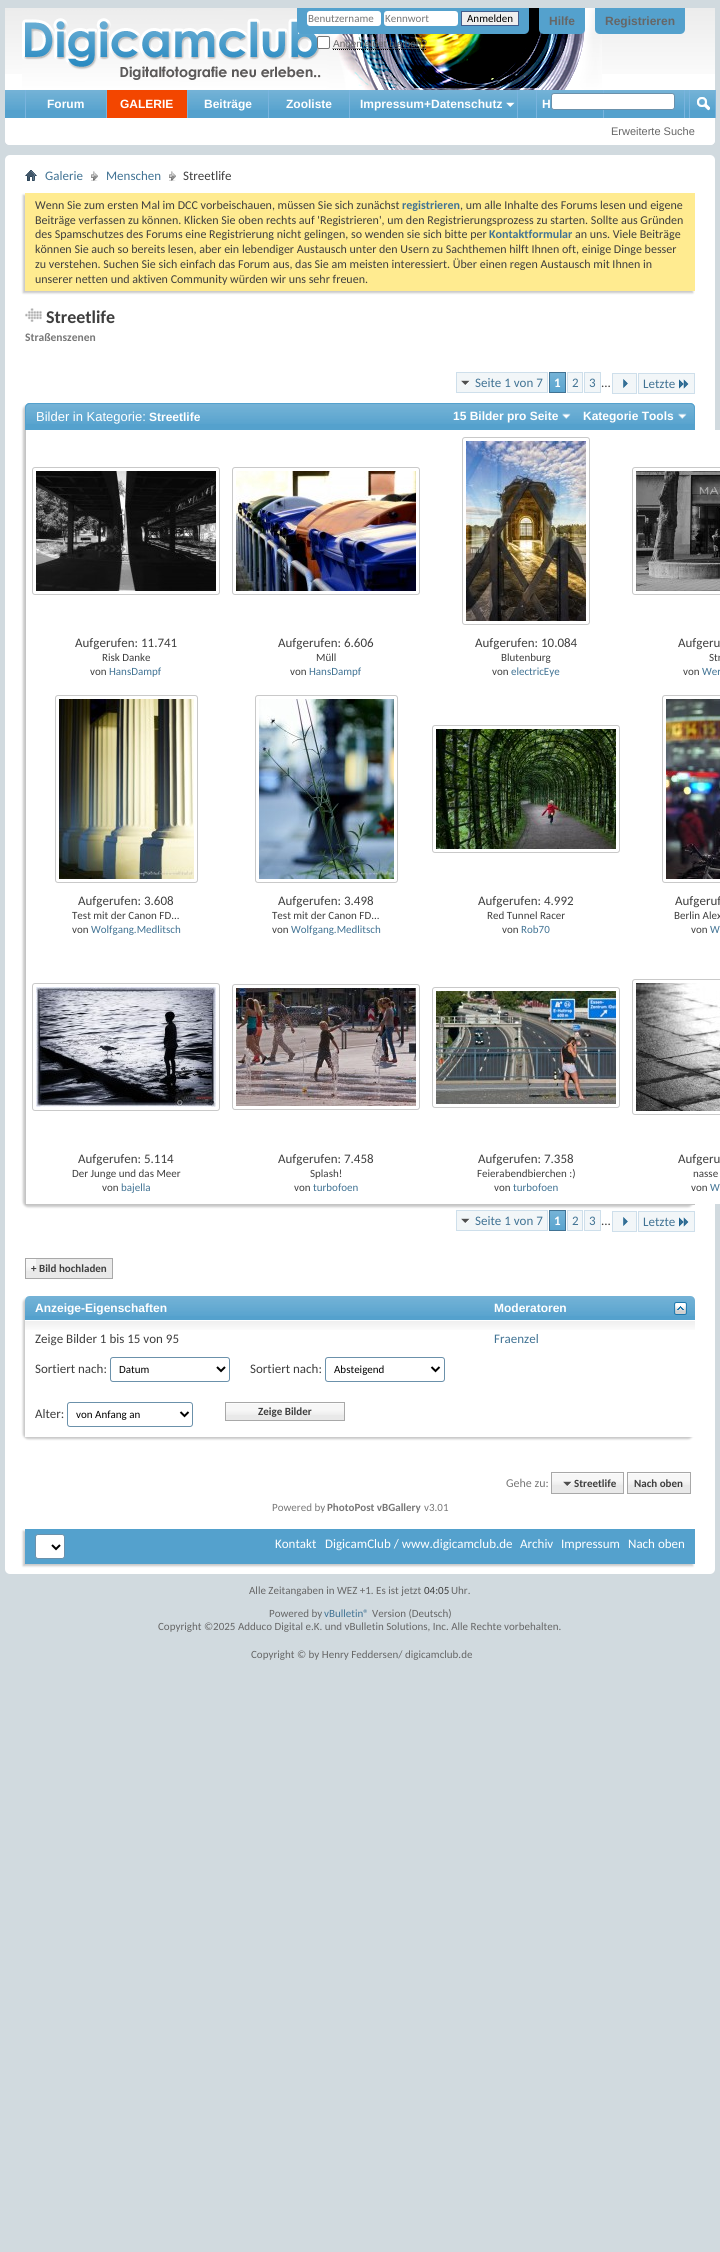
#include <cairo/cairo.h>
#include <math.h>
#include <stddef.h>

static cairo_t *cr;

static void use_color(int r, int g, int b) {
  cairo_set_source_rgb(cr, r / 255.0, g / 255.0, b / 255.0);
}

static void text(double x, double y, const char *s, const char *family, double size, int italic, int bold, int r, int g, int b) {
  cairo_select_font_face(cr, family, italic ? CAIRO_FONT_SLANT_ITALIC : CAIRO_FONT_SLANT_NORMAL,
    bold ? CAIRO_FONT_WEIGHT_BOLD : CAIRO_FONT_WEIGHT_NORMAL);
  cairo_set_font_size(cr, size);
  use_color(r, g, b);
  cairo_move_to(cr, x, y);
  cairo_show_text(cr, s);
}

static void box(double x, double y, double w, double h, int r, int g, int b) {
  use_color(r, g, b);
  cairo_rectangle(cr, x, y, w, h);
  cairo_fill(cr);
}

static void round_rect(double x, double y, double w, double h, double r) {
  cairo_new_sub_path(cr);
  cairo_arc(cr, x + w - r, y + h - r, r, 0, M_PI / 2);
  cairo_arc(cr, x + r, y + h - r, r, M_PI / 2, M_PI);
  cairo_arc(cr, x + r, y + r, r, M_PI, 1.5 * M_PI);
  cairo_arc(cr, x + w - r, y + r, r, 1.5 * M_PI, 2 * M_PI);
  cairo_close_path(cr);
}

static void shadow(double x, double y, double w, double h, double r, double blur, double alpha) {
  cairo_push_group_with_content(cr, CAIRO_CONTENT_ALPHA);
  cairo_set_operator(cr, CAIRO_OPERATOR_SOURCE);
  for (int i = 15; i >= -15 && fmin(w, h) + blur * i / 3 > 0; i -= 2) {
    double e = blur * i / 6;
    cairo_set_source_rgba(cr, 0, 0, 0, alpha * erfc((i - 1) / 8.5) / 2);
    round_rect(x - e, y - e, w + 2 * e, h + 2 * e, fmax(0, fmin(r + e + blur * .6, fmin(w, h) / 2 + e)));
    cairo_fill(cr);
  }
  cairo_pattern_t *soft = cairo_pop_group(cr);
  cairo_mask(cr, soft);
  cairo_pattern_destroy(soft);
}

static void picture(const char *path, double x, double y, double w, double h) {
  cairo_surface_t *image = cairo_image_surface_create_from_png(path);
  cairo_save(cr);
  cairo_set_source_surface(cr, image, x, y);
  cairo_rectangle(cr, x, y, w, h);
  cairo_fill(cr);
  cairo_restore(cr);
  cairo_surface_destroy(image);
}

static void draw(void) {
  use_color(209, 218, 223);
  cairo_paint(cr);
  use_color(255, 255, 255);
  cairo_new_path(cr);
  cairo_move_to(cr, 5, 8);
  cairo_line_to(cr, 715, 8);
  cairo_line_to(cr, 715, 140);
  cairo_curve_to(cr, 715, 143, 713, 145, 710, 145);
  cairo_line_to(cr, 10, 145);
  cairo_curve_to(cr, 7, 145, 5, 143, 5, 140);
  cairo_close_path(cr);
  cairo_fill(cr);
  picture("img_01.png", 5, 8, 710, 66);
  picture("img_02.png", 22, 8, 580, 82);
  use_color(84, 161, 205);
  cairo_new_path(cr);
  cairo_move_to(cr, 297, 8);
  cairo_line_to(cr, 529, 8);
  cairo_line_to(cr, 529, 29);
  cairo_curve_to(cr, 529, 32, 527, 34, 524, 34);
  cairo_line_to(cr, 302, 34);
  cairo_curve_to(cr, 299, 34, 297, 32, 297, 29);
  cairo_close_path(cr);
  cairo_fill(cr);
  use_color(255, 255, 255);
  round_rect(307, 11, 74, 15, 3);
  cairo_fill(cr);
  round_rect(384, 11, 74, 15, 3);
  cairo_fill(cr);
  use_color(239, 239, 239);
  cairo_rectangle(cr, 461.5, 11.5, 57, 14);
  cairo_fill_preserve(cr);
  use_color(65, 93, 141);
  cairo_set_line_width(cr, 1);
  cairo_stroke(cr);
  use_color(255, 255, 255);
  round_rect(317.5, 36.5, 12, 12, 1.5);
  cairo_fill_preserve(cr);
  use_color(118, 118, 118);
  cairo_stroke(cr);
  cairo_new_path(cr);
  cairo_move_to(cr, 333, 49.5);
  cairo_line_to(cr, 427, 49.5);
  use_color(0, 0, 0);
  cairo_set_dash(cr, (double[]){1, 1}, 2, 0);
  cairo_stroke(cr);
  cairo_new_path(cr);
  cairo_move_to(cr, 332.5, 48.5);
  cairo_line_to(cr, 426.5, 48.5);
  use_color(102, 102, 102);
  cairo_stroke(cr);
  use_color(84, 161, 205);
  cairo_new_path(cr);
  cairo_move_to(cr, 539, 8);
  cairo_line_to(cr, 585, 8);
  cairo_line_to(cr, 585, 29);
  cairo_curve_to(cr, 585, 32, 583, 34, 580, 34);
  cairo_line_to(cr, 544, 34);
  cairo_curve_to(cr, 541, 34, 539, 32, 539, 29);
  cairo_close_path(cr);
  cairo_fill(cr);
  cairo_new_path(cr);
  cairo_move_to(cr, 595, 8);
  cairo_line_to(cr, 685, 8);
  cairo_line_to(cr, 685, 29);
  cairo_curve_to(cr, 685, 32, 683, 34, 680, 34);
  cairo_line_to(cr, 600, 34);
  cairo_curve_to(cr, 597, 34, 595, 32, 595, 29);
  cairo_close_path(cr);
  cairo_fill(cr);
  use_color(255, 255, 255);
  cairo_new_path(cr);
  cairo_move_to(cr, 5, 90);
  cairo_line_to(cr, 715, 90);
  cairo_line_to(cr, 715, 140);
  cairo_curve_to(cr, 715, 143, 713, 145, 710, 145);
  cairo_line_to(cr, 10, 145);
  cairo_curve_to(cr, 7, 145, 5, 143, 5, 140);
  cairo_close_path(cr);
  cairo_fill(cr);
  box(5, 90, 710, 28, 84, 161, 205);
  picture("img_03.png", 5, 90, 710, 20);
  box(106, 90, 1, 28, 121, 180, 222);
  box(25, 90, 1, 28, 121, 180, 222);
  box(26, 90, 80, 20, 84, 161, 205);
  picture("img_04.png", 26, 90, 80, 20);
  box(187, 90, 1, 28, 121, 180, 222);
  box(107, 90, 80, 28, 243, 70, 0);
  box(268, 90, 1, 28, 121, 180, 222);
  box(188, 90, 80, 20, 84, 161, 205);
  picture("img_04.png", 188, 90, 80, 20);
  box(349, 90, 1, 28, 121, 180, 222);
  box(269, 90, 80, 20, 84, 161, 205);
  picture("img_04.png", 269, 90, 80, 20);
  box(517, 90, 1, 28, 121, 180, 222);
  picture("img_05.png", 506, 102, 9, 5);
  box(603, 90, 1, 28, 121, 180, 222);
  box(684, 90, 1, 28, 121, 180, 222);
  box(604, 90, 80, 20, 84, 161, 205);
  picture("img_04.png", 604, 90, 80, 20);
  box(536, 90, 1, 28, 121, 180, 222);
  use_color(255, 255, 255);
  round_rect(551.5, 93.5, 123, 16, 2.5);
  cairo_fill_preserve(cr);
  use_color(107, 145, 171);
  cairo_set_dash(cr, NULL, 0, 0);
  cairo_stroke(cr);
  box(715, 90, 1, 28, 121, 180, 222);
  box(689, 90, 1, 28, 121, 180, 222);
  picture("img_06.png", 697, 97, 13, 14);
  use_color(255, 255, 255);
  round_rect(5, 155, 710, 1419, 5);
  cairo_fill(cr);
  picture("img_07.png", 25, 170, 12, 11);
  picture("img_08.png", 91, 171, 7, 10);
  picture("img_08.png", 169, 171, 7, 10);
  use_color(200, 200, 200);
  shadow(23, 195, 670, 98, 0, 1, 1);
  box(25, 193, 670, 98, 255, 235, 144);
  picture("img_09.png", 25, 308, 17, 14);
  box(457, 373, 90, 19, 242, 246, 248);
  picture("img_10.png", 461, 380, 9, 6);
  cairo_rectangle(cr, 456.5, 372.5, 91, 20);
  use_color(206, 223, 235);
  cairo_stroke(cr);
  box(550, 373, 15, 19, 84, 161, 205);
  picture("img_11.png", 550, 373, 15, 19);
  cairo_rectangle(cr, 549.5, 372.5, 16, 20);
  use_color(65, 115, 148);
  cairo_stroke(cr);
  use_color(242, 246, 248);
  cairo_rectangle(cr, 567.5, 372.5, 15, 20);
  cairo_fill_preserve(cr);
  use_color(206, 223, 235);
  cairo_stroke(cr);
  use_color(242, 246, 248);
  cairo_rectangle(cr, 584.5, 372.5, 16, 20);
  cairo_fill_preserve(cr);
  use_color(206, 223, 235);
  cairo_stroke(cr);
  use_color(242, 246, 248);
  cairo_rectangle(cr, 612.5, 373.5, 24, 20);
  cairo_fill_preserve(cr);
  use_color(206, 223, 235);
  cairo_stroke(cr);
  picture("img_12.png", 623, 379, 5, 9);
  box(639, 374, 55, 19, 242, 246, 248);
  box(638, 373, 57, 1, 206, 223, 235);
  box(638, 393, 37, 1, 206, 223, 235);
  box(638, 373, 1, 21, 206, 223, 235);
  box(694, 373, 1, 21, 206, 223, 235);
  box(675, 393, 20, 1, 206, 223, 235);
  picture("img_13.png", 679, 379, 10, 10);
  use_color(200, 200, 200);
  shadow(23, 405, 670, 802, 5, 1, 1);
  use_color(84, 161, 205);
  cairo_new_path(cr);
  cairo_move_to(cr, 30, 403);
  cairo_line_to(cr, 690, 403);
  cairo_curve_to(cr, 693, 403, 695, 405, 695, 408);
  cairo_line_to(cr, 695, 430);
  cairo_line_to(cr, 25, 430);
  cairo_line_to(cr, 25, 408);
  cairo_curve_to(cr, 25, 405, 27, 403, 30, 403);
  cairo_close_path(cr);
  cairo_fill(cr);
  picture("img_14.png", 25, 404, 670, 20);
  cairo_new_path(cr);
  cairo_move_to(cr, 30, 403.5);
  cairo_line_to(cr, 690, 403.5);
  cairo_curve_to(cr, 692.5, 403.5, 694.5, 405.5, 694.5, 408);
  cairo_line_to(cr, 694.5, 429.5);
  cairo_line_to(cr, 25.5, 429.5);
  cairo_line_to(cr, 25.5, 408);
  cairo_curve_to(cr, 25.5, 405.5, 27.5, 403.5, 30, 403.5);
  cairo_close_path(cr);
  cairo_stroke(cr);
  picture("img_15.png", 562, 413, 9, 6);
  picture("img_15.png", 678, 413, 9, 6);
  box(25, 1204, 670, 1, 196, 196, 196);
  box(25, 430, 1, 775, 196, 196, 196);
  box(26, 430, 694, 258, 255, 255, 255);
  round_rect(32.5, 467.5, 187, 127, 2.5);
  use_color(201, 201, 201);
  cairo_stroke(cr);
  picture("img_16.png", 36, 471, 180, 120);
  round_rect(232.5, 467.5, 187, 127, 2.5);
  cairo_stroke(cr);
  picture("img_17.png", 236, 471, 180, 120);
  round_rect(462.5, 437.5, 127, 187, 2.5);
  cairo_stroke(cr);
  picture("img_18.png", 466, 441, 120, 180);
  round_rect(632.5, 467.5, 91, 127, 2.5);
  cairo_stroke(cr);
  picture("img_19.png", 636, 471, 84, 120);
  box(26, 688, 694, 258, 255, 255, 255);
  round_rect(55.5, 695.5, 142, 187, 2.5);
  use_color(201, 201, 201);
  cairo_stroke(cr);
  picture("img_20.png", 59, 699, 135, 180);
  round_rect(255.5, 695.5, 142, 187, 2.5);
  cairo_stroke(cr);
  picture("img_21.png", 259, 699, 135, 180);
  round_rect(432.5, 725.5, 187, 127, 2.5);
  cairo_stroke(cr);
  picture("img_22.png", 436, 729, 180, 120);
  round_rect(662.5, 695.5, 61, 187, 2.5);
  cairo_stroke(cr);
  picture("img_23.png", 666, 699, 54, 180);
  box(26, 946, 694, 258, 255, 255, 255);
  round_rect(32.5, 983.5, 187, 127, 2.5);
  use_color(201, 201, 201);
  cairo_stroke(cr);
  picture("img_24.png", 36, 987, 180, 120);
  round_rect(232.5, 984.5, 187, 125, 2.5);
  cairo_stroke(cr);
  picture("img_25.png", 236, 988, 180, 118);
  round_rect(432.5, 987.5, 187, 120, 2.5);
  cairo_stroke(cr);
  picture("img_26.png", 436, 991, 180, 113);
  round_rect(632.5, 979.5, 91, 135, 2.5);
  cairo_stroke(cr);
  picture("img_27.png", 636, 983, 84, 128);
  box(457, 1211, 90, 19, 242, 246, 248);
  picture("img_10.png", 461, 1218, 9, 6);
  cairo_rectangle(cr, 456.5, 1210.5, 91, 20);
  use_color(206, 223, 235);
  cairo_stroke(cr);
  box(550, 1211, 15, 19, 84, 161, 205);
  picture("img_11.png", 550, 1211, 15, 19);
  cairo_rectangle(cr, 549.5, 1210.5, 16, 20);
  use_color(65, 115, 148);
  cairo_stroke(cr);
  use_color(242, 246, 248);
  cairo_rectangle(cr, 567.5, 1210.5, 15, 20);
  cairo_fill_preserve(cr);
  use_color(206, 223, 235);
  cairo_stroke(cr);
  use_color(242, 246, 248);
  cairo_rectangle(cr, 584.5, 1210.5, 16, 20);
  cairo_fill_preserve(cr);
  use_color(206, 223, 235);
  cairo_stroke(cr);
  use_color(242, 246, 248);
  cairo_rectangle(cr, 612.5, 1211.5, 24, 20);
  cairo_fill_preserve(cr);
  use_color(206, 223, 235);
  cairo_stroke(cr);
  picture("img_12.png", 623, 1217, 5, 9);
  box(639, 1212, 55, 19, 242, 246, 248);
  box(638, 1211, 57, 1, 206, 223, 235);
  box(638, 1231, 37, 1, 206, 223, 235);
  box(638, 1211, 1, 21, 206, 223, 235);
  box(694, 1211, 1, 21, 206, 223, 235);
  box(675, 1231, 20, 1, 206, 223, 235);
  picture("img_13.png", 679, 1217, 10, 10);
  box(26, 1259, 86, 19, 233, 233, 233);
  picture("img_28.png", 26, 1259, 10, 12);
  box(25, 1258, 88, 1, 168, 168, 168);
  box(25, 1278, 11, 1, 168, 168, 168);
  box(25, 1258, 1, 21, 168, 168, 168);
  box(112, 1258, 1, 21, 168, 168, 168);
  box(36, 1278, 77, 1, 168, 168, 168);
  cairo_save(cr);
  cairo_set_fill_rule(cr, CAIRO_FILL_RULE_EVEN_ODD);
  cairo_new_path(cr);
  cairo_move_to(cr, 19, 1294);
  cairo_line_to(cr, 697, 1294);
  cairo_line_to(cr, 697, 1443);
  cairo_line_to(cr, 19, 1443);
  cairo_close_path(cr);
  cairo_move_to(cr, 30, 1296);
  cairo_line_to(cr, 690, 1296);
  cairo_curve_to(cr, 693, 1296, 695, 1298, 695, 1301);
  cairo_line_to(cr, 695, 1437);
  cairo_line_to(cr, 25, 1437);
  cairo_line_to(cr, 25, 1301);
  cairo_curve_to(cr, 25, 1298, 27, 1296, 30, 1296);
  cairo_close_path(cr);
  cairo_clip(cr);
  use_color(200, 200, 200);
  shadow(23, 1298, 670, 141, 5, 1, 1);
  cairo_restore(cr);
  use_color(84, 161, 205);
  cairo_new_path(cr);
  cairo_move_to(cr, 30, 1296);
  cairo_line_to(cr, 690, 1296);
  cairo_curve_to(cr, 693, 1296, 695, 1298, 695, 1301);
  cairo_line_to(cr, 695, 1320);
  cairo_line_to(cr, 25, 1320);
  cairo_line_to(cr, 25, 1301);
  cairo_curve_to(cr, 25, 1298, 27, 1296, 30, 1296);
  cairo_close_path(cr);
  cairo_fill(cr);
  picture("img_29.png", 25, 1296, 670, 20);
  picture("img_30.png", 674, 1302, 13, 13);
  picture("img_31.png", 25, 1321, 670, 9);
  round_rect(110.5, 1357.5, 119, 24, 2.5);
  use_color(107, 145, 171);
  cairo_stroke(cr);
  cairo_new_path(cr);
  cairo_move_to(cr, 217, 1367);
  cairo_line_to(cr, 221, 1371);
  cairo_line_to(cr, 225, 1367);
  use_color(0, 0, 0);
  cairo_set_line_width(cr, 2);
  cairo_stroke(cr);
  round_rect(325.5, 1357.5, 119, 24, 2.5);
  use_color(107, 145, 171);
  cairo_set_line_width(cr, 1);
  cairo_stroke(cr);
  cairo_new_path(cr);
  cairo_move_to(cr, 431.5, 1367);
  cairo_line_to(cr, 435.5, 1371);
  cairo_line_to(cr, 439.5, 1367);
  use_color(0, 0, 0);
  cairo_set_line_width(cr, 2);
  cairo_stroke(cr);
  round_rect(67.5, 1402.5, 125, 24, 2.5);
  use_color(107, 145, 171);
  cairo_set_line_width(cr, 1);
  cairo_stroke(cr);
  cairo_new_path(cr);
  cairo_move_to(cr, 180.5, 1412);
  cairo_line_to(cr, 184.5, 1416);
  cairo_line_to(cr, 188.5, 1412);
  use_color(0, 0, 0);
  cairo_set_line_width(cr, 2);
  cairo_stroke(cr);
  box(226, 1403, 118, 17, 233, 233, 233);
  picture("img_32.png", 226, 1403, 118, 12);
  cairo_rectangle(cr, 225.5, 1402.5, 119, 18);
  use_color(168, 168, 168);
  cairo_set_line_width(cr, 1);
  cairo_stroke(cr);
  box(552, 1473, 71, 20, 233, 233, 233);
  picture("img_33.png", 552, 1473, 71, 12);
  box(628, 1473, 62, 20, 233, 233, 233);
  picture("img_34.png", 628, 1473, 62, 12);
  cairo_rectangle(cr, 551.5, 1472.5, 72, 21);
  use_color(168, 168, 168);
  cairo_stroke(cr);
  picture("img_35.png", 563, 1481, 9, 6);
  cairo_rectangle(cr, 627.5, 1472.5, 63, 21);
  cairo_stroke(cr);
  use_color(200, 200, 200);
  shadow(23, 1531, 670, 35, 0, 1, 1);
  box(25, 1529, 670, 35, 84, 161, 205);
  use_color(255, 255, 255);
  round_rect(35.5, 1534.5, 29, 24, 2.5);
  cairo_fill_preserve(cr);
  use_color(107, 145, 171);
  cairo_stroke(cr);
  cairo_new_path(cr);
  cairo_move_to(cr, 52, 1545);
  cairo_line_to(cr, 56, 1549);
  cairo_line_to(cr, 60, 1545);
  use_color(0, 0, 0);
  cairo_set_line_width(cr, 2);
  cairo_stroke(cr);
  text(308, 22, "Benutzername", "Carlito", 11, 0, 0, 119, 119, 119);
  text(385, 22, "Kennwort", "Carlito", 11, 0, 0, 119, 119, 119);
  text(467, 22, "Anmelden", "Carlito", 11, 0, 0, 0, 0, 0);
  text(333, 47, "Angemeldet bleiben?", "Liberation Sans", 10, 0, 0, 102, 102, 102);
  text(549, 25, "Hilfe", "Liberation Sans", 12, 0, 1, 102, 102, 102);
  text(605, 25, "Registrieren", "Liberation Sans", 12, 0, 1, 102, 102, 102);
  text(47, 108, "Forum", "Liberation Sans", 12, 0, 1, 255, 255, 255);
  text(120, 108, "GALERIE", "Liberation Sans", 12, 0, 1, 255, 255, 255);
  text(204, 108, "Beiträge", "Liberation Sans", 12, 0, 1, 255, 255, 255);
  text(286, 108, "Zooliste", "Liberation Sans", 12, 0, 1, 255, 255, 255);
  text(360, 108, "Impressum+Datenschutz", "Liberation Sans", 12, 0, 1, 255, 255, 255);
  text(542, 108, "H", "Liberation Sans", 12, 0, 1, 255, 255, 255);
  text(611, 135, "Erweiterte Suche", "Liberation Sans", 11, 0, 0, 102, 102, 102);
  text(45, 180, "Galerie", "Carlito", 13, 0, 0, 65, 115, 148);
  text(106, 180, "Menschen", "Carlito", 13, 0, 0, 65, 115, 148);
  text(183, 180, "Streetlife", "Carlito", 13, 0, 0, 62, 62, 62);
  text(35, 209, "Wenn Sie zum ersten Mal im DCC vorbeischauen, müssen Sie sich zunächst", "Carlito", 12, 0, 0, 62, 62, 62);
  text(402, 209, "registrieren", "Carlito", 12, 0, 1, 65, 115, 148);
  text(460, 209, ", um alle Inhalte des Forums lesen und eigene", "Carlito", 12, 0, 0, 62, 62, 62);
  text(35, 224, "Beiträge verfassen zu können. Klicken Sie oben rechts auf 'Registrieren', um den Registrierungsprozess zu starten. Sollte aus Gründen", "Carlito", 12, 0, 0, 62, 62, 62);
  text(35, 238, "des Spamschutzes des Forums eine Registrierung nicht gelingen, so wenden sie sich bitte per", "Carlito", 12, 0, 0, 62, 62, 62);
  text(489, 238, "Kontaktformular", "Carlito", 12, 0, 1, 65, 115, 148);
  text(575, 238, "an uns. Viele Beiträge", "Carlito", 12, 0, 0, 62, 62, 62);
  text(35, 253, "können Sie auch so bereits lesen, aber ein lebendiger Austausch unter den Usern zu Sachthemen hilft Ihnen oft, einige Dinge besser", "Carlito", 12, 0, 0, 62, 62, 62);
  text(35, 268, "zu verstehen. Suchen Sie sich einfach das Forum aus, das Sie am meisten interessiert. Über einen regen Austausch mit Ihnen in", "Carlito", 12, 0, 0, 62, 62, 62);
  text(35, 283, "unserer netten und aktiven Community würden wir uns sehr freuen.", "Carlito", 12, 0, 0, 62, 62, 62);
  text(46, 323, "Streetlife", "Carlito", 18, 0, 1, 62, 62, 62);
  text(25, 341, "Straßenszenen", "Carlito", 11.5, 0, 1, 119, 119, 119);
  text(475, 387, "Seite 1 von 7", "Carlito", 13, 0, 0, 65, 115, 148);
  text(554, 387, "1", "Carlito", 13, 0, 1, 255, 255, 255);
  text(572, 387, "2", "Carlito", 13, 0, 0, 65, 115, 148);
  text(589, 387, "3", "Carlito", 13, 0, 0, 65, 115, 148);
  text(601, 387, "...", "Carlito", 13, 0, 0, 62, 62, 62);
  text(643, 388, "Letzte", "Carlito", 13, 0, 0, 65, 115, 148);
  text(36, 421, "Bilder in Kategorie:", "Liberation Sans", 13, 0, 0, 255, 255, 255);
  text(149, 421, "Streetlife", "Liberation Sans", 12, 0, 1, 255, 255, 255);
  text(453, 420, "15 Bilder pro Seite", "Liberation Sans", 12, 0, 1, 255, 255, 255);
  text(583, 420, "Kategorie Tools", "Liberation Sans", 12, 0, 1, 255, 255, 255);
  text(75, 647, "Aufgerufen: 11.741", "Carlito", 13, 0, 0, 62, 62, 62);
  text(102, 661, "Risk Danke", "Carlito", 11, 0, 0, 62, 62, 62);
  text(90, 675, "von", "Carlito", 11, 0, 0, 62, 62, 62);
  text(109, 675, "HansDampf", "Carlito", 11, 0, 0, 65, 115, 148);
  text(278, 647, "Aufgerufen: 6.606", "Carlito", 13, 0, 0, 62, 62, 62);
  text(316, 661, "Müll", "Carlito", 11, 0, 0, 62, 62, 62);
  text(290, 675, "von", "Carlito", 11, 0, 0, 62, 62, 62);
  text(309, 675, "HansDampf", "Carlito", 11, 0, 0, 65, 115, 148);
  text(475, 647, "Aufgerufen: 10.084", "Carlito", 13, 0, 0, 62, 62, 62);
  text(501, 661, "Blutenburg", "Carlito", 11, 0, 0, 62, 62, 62);
  text(492, 675, "von", "Carlito", 11, 0, 0, 62, 62, 62);
  text(511, 675, "electricEye", "Carlito", 11, 0, 0, 65, 115, 148);
  text(678, 647, "Aufgeru", "Carlito", 13, 0, 0, 62, 62, 62);
  text(709, 661, "Str", "Carlito", 11, 0, 0, 62, 62, 62);
  text(683, 675, "von", "Carlito", 11, 0, 0, 62, 62, 62);
  text(702, 675, "Wer", "Carlito", 11, 0, 0, 65, 115, 148);
  text(78, 905, "Aufgerufen: 3.608", "Carlito", 13, 0, 0, 62, 62, 62);
  text(72, 919, "Test mit der Canon FD...", "Carlito", 11, 0, 0, 62, 62, 62);
  text(72, 933, "von", "Carlito", 11, 0, 0, 62, 62, 62);
  text(91, 933, "Wolfgang.Medlitsch", "Carlito", 11, 0, 0, 65, 115, 148);
  text(278, 905, "Aufgerufen: 3.498", "Carlito", 13, 0, 0, 62, 62, 62);
  text(272, 919, "Test mit der Canon FD...", "Carlito", 11, 0, 0, 62, 62, 62);
  text(272, 933, "von", "Carlito", 11, 0, 0, 62, 62, 62);
  text(291, 933, "Wolfgang.Medlitsch", "Carlito", 11, 0, 0, 65, 115, 148);
  text(478, 905, "Aufgerufen: 4.992", "Carlito", 13, 0, 0, 62, 62, 62);
  text(487, 919, "Red Tunnel Racer", "Carlito", 11, 0, 0, 62, 62, 62);
  text(502, 933, "von", "Carlito", 11, 0, 0, 62, 62, 62);
  text(521, 933, "Rob70", "Carlito", 11, 0, 0, 65, 115, 148);
  text(675, 905, "Aufgeruf", "Carlito", 13, 0, 0, 62, 62, 62);
  text(674, 919, "Berlin Alex", "Carlito", 11, 0, 0, 62, 62, 62);
  text(691, 933, "von", "Carlito", 11, 0, 0, 62, 62, 62);
  text(710, 933, "W", "Carlito", 11, 0, 0, 65, 115, 148);
  text(78, 1163, "Aufgerufen: 5.114", "Carlito", 13, 0, 0, 62, 62, 62);
  text(72, 1177, "Der Junge und das Meer", "Carlito", 11, 0, 0, 62, 62, 62);
  text(102, 1191, "von", "Carlito", 11, 0, 0, 62, 62, 62);
  text(121, 1191, "bajella", "Carlito", 11, 0, 0, 65, 115, 148);
  text(278, 1163, "Aufgerufen: 7.458", "Carlito", 13, 0, 0, 62, 62, 62);
  text(310, 1177, "Splash!", "Carlito", 11, 0, 0, 62, 62, 62);
  text(294, 1191, "von", "Carlito", 11, 0, 0, 62, 62, 62);
  text(313, 1191, "turbofoen", "Carlito", 11, 0, 0, 65, 115, 148);
  text(478, 1163, "Aufgerufen: 7.358", "Carlito", 13, 0, 0, 62, 62, 62);
  text(477, 1177, "Feierabendbierchen :)", "Carlito", 11, 0, 0, 62, 62, 62);
  text(494, 1191, "von", "Carlito", 11, 0, 0, 62, 62, 62);
  text(513, 1191, "turbofoen", "Carlito", 11, 0, 0, 65, 115, 148);
  text(678, 1163, "Aufgeru", "Carlito", 13, 0, 0, 62, 62, 62);
  text(693, 1177, "nasse", "Carlito", 11, 0, 0, 62, 62, 62);
  text(691, 1191, "von", "Carlito", 11, 0, 0, 62, 62, 62);
  text(710, 1191, "W", "Carlito", 11, 0, 0, 65, 115, 148);
  text(475, 1225, "Seite 1 von 7", "Carlito", 13, 0, 0, 65, 115, 148);
  text(554, 1225, "1", "Carlito", 13, 0, 1, 255, 255, 255);
  text(572, 1225, "2", "Carlito", 13, 0, 0, 65, 115, 148);
  text(589, 1225, "3", "Carlito", 13, 0, 0, 65, 115, 148);
  text(601, 1225, "...", "Carlito", 13, 0, 0, 62, 62, 62);
  text(643, 1226, "Letzte", "Carlito", 13, 0, 0, 65, 115, 148);
  text(31, 1272, "+ Bild hochladen", "Carlito", 11, 0, 1, 62, 62, 62);
  text(35, 1312, "Anzeige-Eigenschaften", "Liberation Sans", 12, 0, 1, 255, 255, 255);
  text(494, 1312, "Moderatoren", "Liberation Sans", 12, 0, 1, 255, 255, 255);
  text(35, 1343, "Zeige Bilder 1 bis 15 von 95", "Carlito", 13, 0, 0, 62, 62, 62);
  text(35, 1373, "Sortiert nach:", "Carlito", 13, 0, 0, 62, 62, 62);
  text(119, 1373, "Datum", "Carlito", 11, 0, 0, 0, 0, 0);
  text(250, 1373, "Sortiert nach:", "Carlito", 13, 0, 0, 62, 62, 62);
  text(334, 1373, "Absteigend", "Carlito", 11, 0, 0, 0, 0, 0);
  text(35, 1418, "Alter:", "Carlito", 13, 0, 0, 62, 62, 62);
  text(76, 1418, "von Anfang an", "Carlito", 11, 0, 0, 0, 0, 0);
  text(258, 1415, "Zeige Bilder", "Carlito", 11, 0, 1, 62, 62, 62);
  text(494, 1343, "Fraenzel", "Carlito", 13, 0, 0, 65, 115, 148);
  text(506, 1487, "Gehe zu:", "Carlito", 12, 0, 0, 119, 119, 119);
  text(574, 1487, "Streetlife", "Carlito", 11, 0, 1, 62, 62, 62);
  text(634, 1487, "Nach oben", "Carlito", 11, 0, 1, 62, 62, 62);
  text(272, 1511, "Powered by", "Carlito", 11, 0, 0, 119, 119, 119);
  text(327, 1511, "PhotoPost vBGallery", "Carlito", 11, 0, 1, 119, 119, 119);
  text(424, 1511, "v3.01", "Carlito", 11, 0, 0, 119, 119, 119);
  text(275, 1548, "Kontakt", "Carlito", 13, 0, 0, 255, 255, 255);
  text(325, 1548, "DigicamClub / www.digicamclub.de", "Carlito", 13, 0, 0, 255, 255, 255);
  text(520, 1548, "Archiv", "Carlito", 13, 0, 0, 255, 255, 255);
  text(561, 1548, "Impressum", "Carlito", 13, 0, 0, 255, 255, 255);
  text(628, 1548, "Nach oben", "Carlito", 13, 0, 0, 255, 255, 255);
  text(249, 1594, "Alle Zeitangaben in WEZ +1. Es ist jetzt", "Carlito", 11, 0, 0, 102, 102, 102);
  text(424, 1594, "04:05", "Carlito", 11, 0, 0, 62, 62, 62);
  text(451, 1594, "Uhr.", "Carlito", 11, 0, 0, 102, 102, 102);
  text(269, 1617, "Powered by", "Carlito", 11, 0, 0, 102, 102, 102);
  text(324, 1617, "vBulletin®", "Carlito", 11, 0, 0, 65, 115, 148);
  text(372, 1617, "Version (Deutsch)", "Carlito", 11, 0, 0, 102, 102, 102);
  text(158, 1630, "Copyright ©2025 Adduco Digital e.K. und vBulletin Solutions, Inc. Alle Rechte vorbehalten.", "Carlito", 11, 0, 0, 102, 102, 102);
  text(251, 1658, "Copyright © by Henry Feddersen/ digicamclub.de", "Carlito", 11, 0, 0, 102, 102, 102);
}

int main(void) {
  cairo_surface_t *surface = cairo_image_surface_create(CAIRO_FORMAT_RGB24, 720, 2252);
  cr = cairo_create(surface);
  cairo_font_options_t *options = cairo_font_options_create();
  cairo_font_options_set_hint_metrics(options, CAIRO_HINT_METRICS_OFF);
  cairo_font_options_set_hint_style(options, CAIRO_HINT_STYLE_NONE);
  cairo_set_font_options(cr, options);
  cairo_set_miter_limit(cr, 4);
  draw();
  cairo_surface_write_to_png(surface, "out.png");
  cairo_font_options_destroy(options);
  cairo_destroy(cr);
  cairo_surface_destroy(surface);
  return 0;
}
